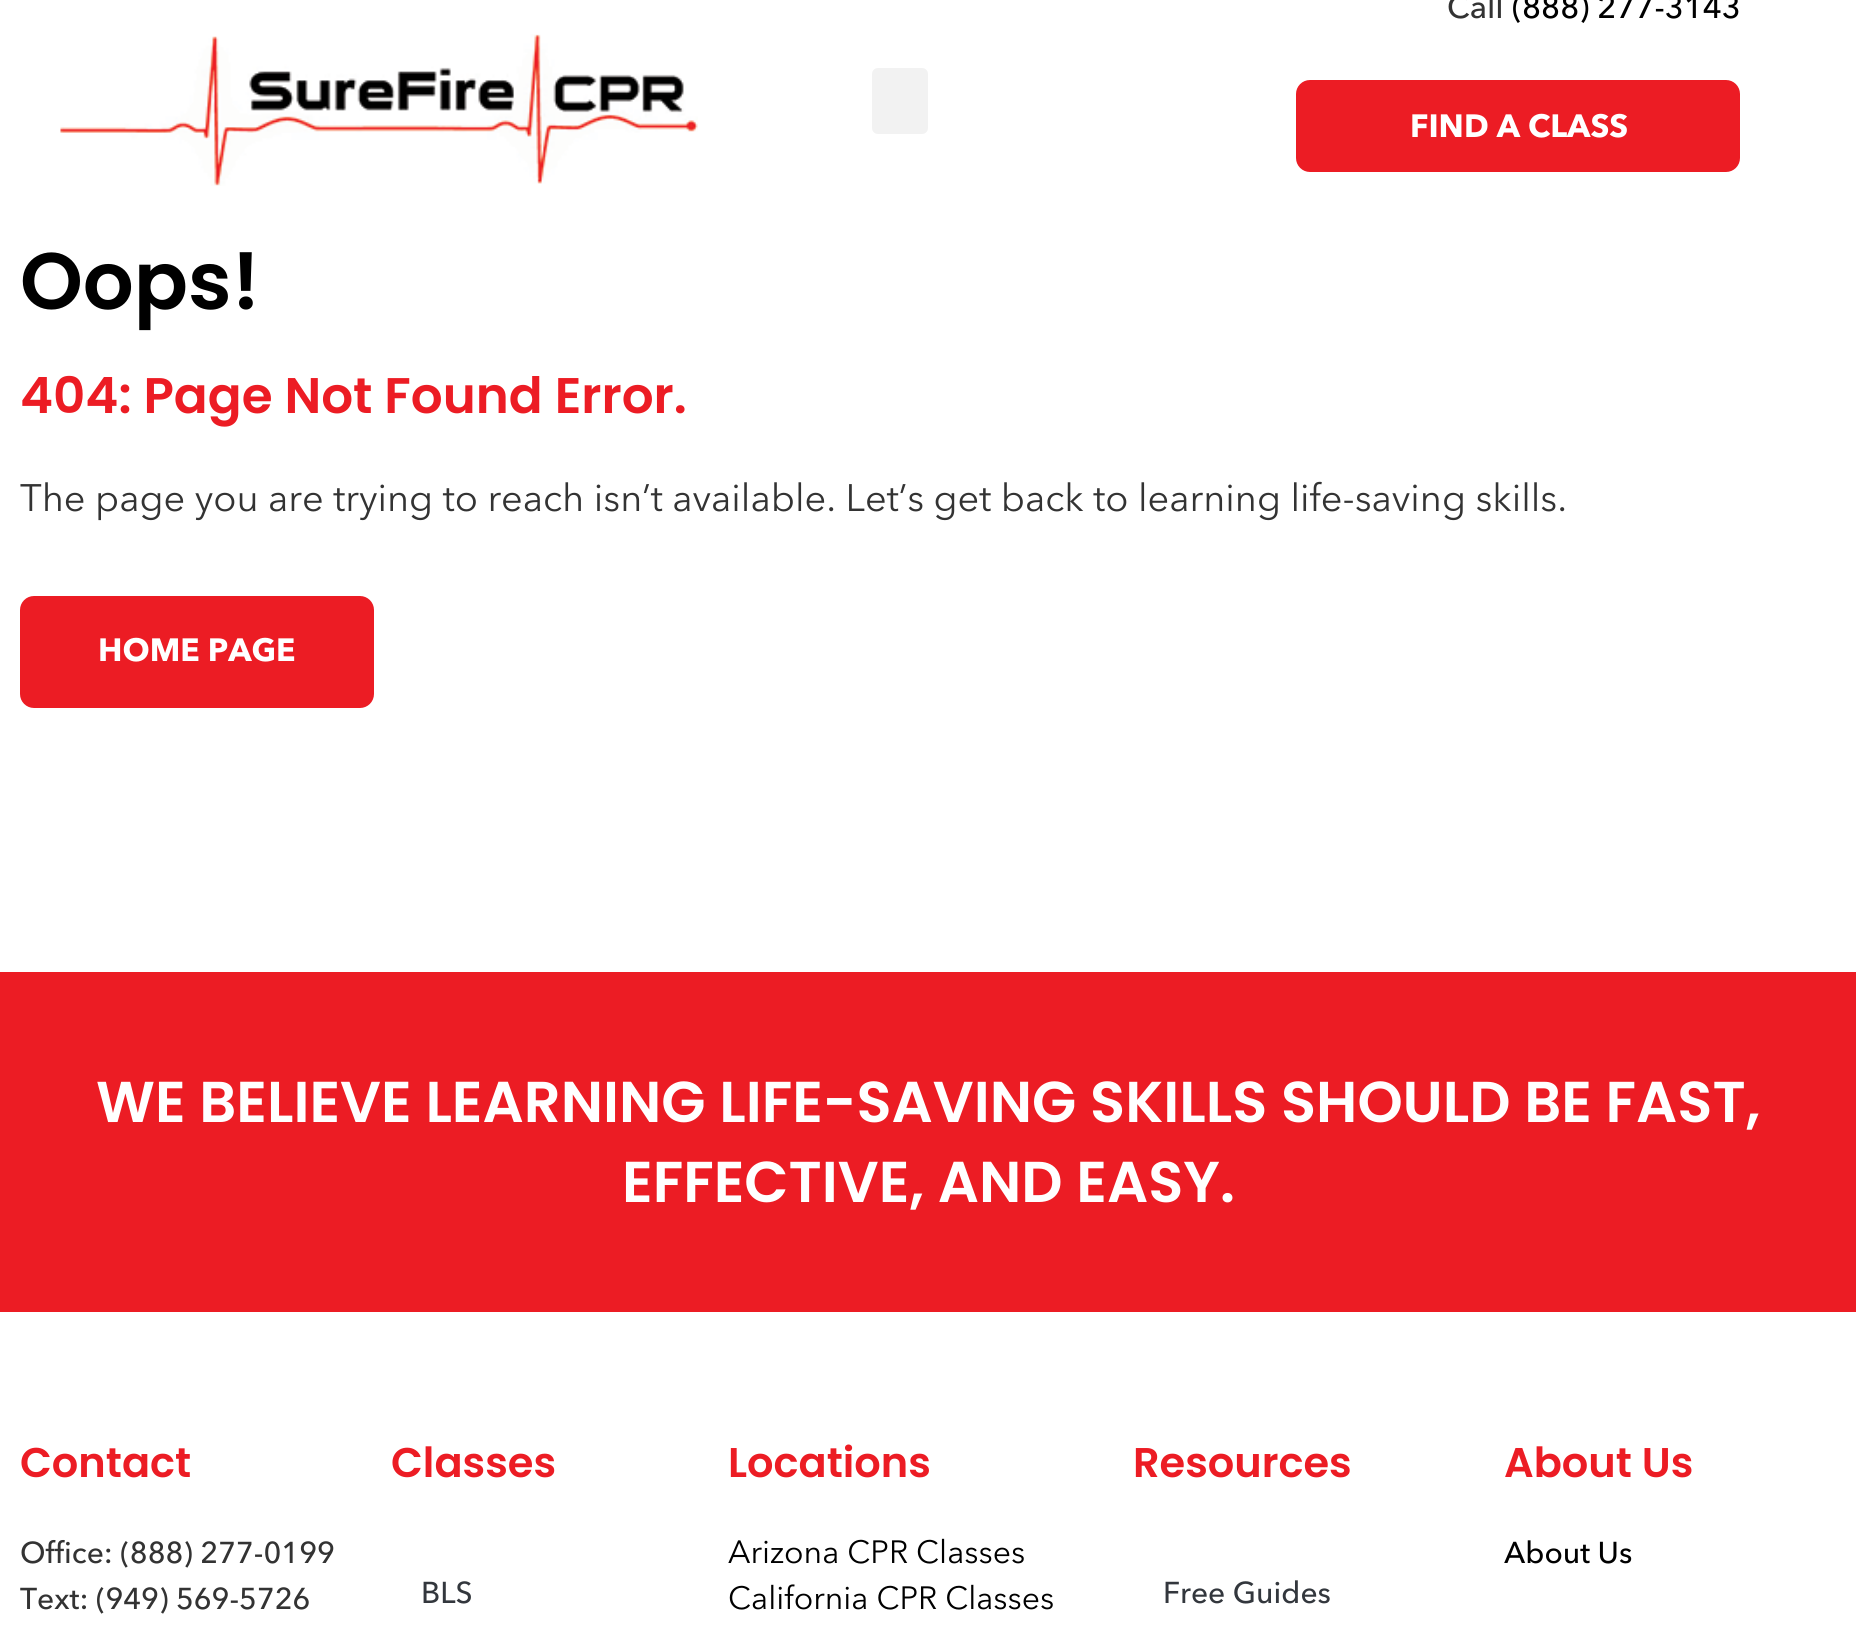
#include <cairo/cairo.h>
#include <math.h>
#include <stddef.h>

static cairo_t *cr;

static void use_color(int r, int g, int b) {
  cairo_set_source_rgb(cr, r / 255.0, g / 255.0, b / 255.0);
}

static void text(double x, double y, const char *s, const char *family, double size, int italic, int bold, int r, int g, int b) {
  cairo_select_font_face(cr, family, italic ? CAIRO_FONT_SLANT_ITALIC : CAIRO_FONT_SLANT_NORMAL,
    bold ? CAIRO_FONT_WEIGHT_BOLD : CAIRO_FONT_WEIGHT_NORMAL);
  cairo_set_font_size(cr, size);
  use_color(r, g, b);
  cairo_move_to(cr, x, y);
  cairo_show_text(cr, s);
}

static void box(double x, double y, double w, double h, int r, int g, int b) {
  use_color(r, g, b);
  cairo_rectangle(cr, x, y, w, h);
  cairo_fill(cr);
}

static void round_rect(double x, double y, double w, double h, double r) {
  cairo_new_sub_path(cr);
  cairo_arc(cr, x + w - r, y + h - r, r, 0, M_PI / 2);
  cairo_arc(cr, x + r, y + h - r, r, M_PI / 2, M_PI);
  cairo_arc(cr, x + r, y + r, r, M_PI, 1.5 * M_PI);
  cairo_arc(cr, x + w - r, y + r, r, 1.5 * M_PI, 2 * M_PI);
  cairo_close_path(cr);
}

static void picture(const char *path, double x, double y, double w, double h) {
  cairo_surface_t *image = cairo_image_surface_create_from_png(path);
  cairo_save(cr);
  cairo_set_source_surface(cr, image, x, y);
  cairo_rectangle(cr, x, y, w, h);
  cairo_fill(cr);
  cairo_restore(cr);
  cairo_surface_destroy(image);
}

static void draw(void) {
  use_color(255, 255, 255);
  cairo_paint(cr);
  picture("img_01.png", 60, 34, 638, 152);
  use_color(242, 242, 242);
  round_rect(872, 68, 56, 66, 6);
  cairo_fill(cr);
  use_color(236, 28, 36);
  round_rect(1296, 80, 444, 92, 14);
  cairo_fill(cr);
  round_rect(20, 596, 354, 112, 14);
  cairo_fill(cr);
  box(0, 972, 1856, 340, 236, 28, 36);
  text(1447, 18, "Call", "Avenir Next Medium", 32, 0, 0, 51, 51, 51);
  text(1512, 18, "(888) 277-3143", "Avenir Next Medium", 32, 0, 0, 0, 0, 0);
  text(1410, 137, "FIND A CLASS", "Avenir Next", 32, 0, 1, 255, 255, 255);
  text(20, 309, "Oops!", "Poppins SemiBold", 80, 0, 0, 0, 0, 0);
  text(20, 413, "404: Page Not Found Error.", "Poppins SemiBold", 50, 0, 0, 236, 28, 36);
  text(20, 511, "The page you are trying to reach isn’t available. Let’s get back to learning life-saving skills.", "Avenir Next", 38, 0, 0, 51, 51, 51);
  text(98, 661, "HOME PAGE", "Avenir Next", 32, 0, 1, 255, 255, 255);
  text(96, 1122, "WE BELIEVE LEARNING LIFE-SAVING SKILLS SHOULD BE FAST,", "Poppins SemiBold", 57.6, 0, 0, 255, 255, 255);
  text(622, 1202, "EFFECTIVE, AND EASY.", "Poppins SemiBold", 57.6, 0, 0, 255, 255, 255);
  text(20, 1477, "Contact", "Poppins SemiBold", 41.5, 0, 0, 236, 28, 36);
  text(20, 1563, "Office: (888) 277-0199", "Avenir Next Medium", 30, 0, 0, 51, 51, 51);
  text(20, 1609, "Text: (949) 569-5726", "Avenir Next Medium", 30, 0, 0, 51, 51, 51);
  text(391, 1477, "Classes", "Poppins SemiBold", 41.5, 0, 0, 236, 28, 36);
  text(421, 1603, "BLS", "Avenir Next Medium", 30, 0, 0, 51, 55, 61);
  text(728, 1477, "Locations", "Poppins SemiBold", 41.5, 0, 0, 236, 28, 36);
  text(728, 1563, "Arizona CPR Classes", "Avenir Next", 32, 0, 0, 0, 0, 0);
  text(728, 1609, "California CPR Classes", "Avenir Next", 32, 0, 0, 0, 0, 0);
  text(1133, 1477, "Resources", "Poppins SemiBold", 41.5, 0, 0, 236, 28, 36);
  text(1163, 1603, "Free Guides", "Avenir Next Medium", 30, 0, 0, 51, 55, 61);
  text(1504, 1477, "About Us", "Poppins SemiBold", 41.5, 0, 0, 236, 28, 36);
  text(1504, 1563, "About Us", "Avenir Next Medium", 30, 0, 0, 0, 0, 0);
}

int main(void) {
  cairo_surface_t *surface = cairo_image_surface_create(CAIRO_FORMAT_RGB24, 1856, 1631);
  cr = cairo_create(surface);
  cairo_font_options_t *options = cairo_font_options_create();
  cairo_font_options_set_hint_metrics(options, CAIRO_HINT_METRICS_OFF);
  cairo_font_options_set_hint_style(options, CAIRO_HINT_STYLE_NONE);
  cairo_set_font_options(cr, options);
  cairo_set_miter_limit(cr, 4);
  draw();
  cairo_surface_write_to_png(surface, "out.png");
  cairo_font_options_destroy(options);
  cairo_destroy(cr);
  cairo_surface_destroy(surface);
  return 0;
}
